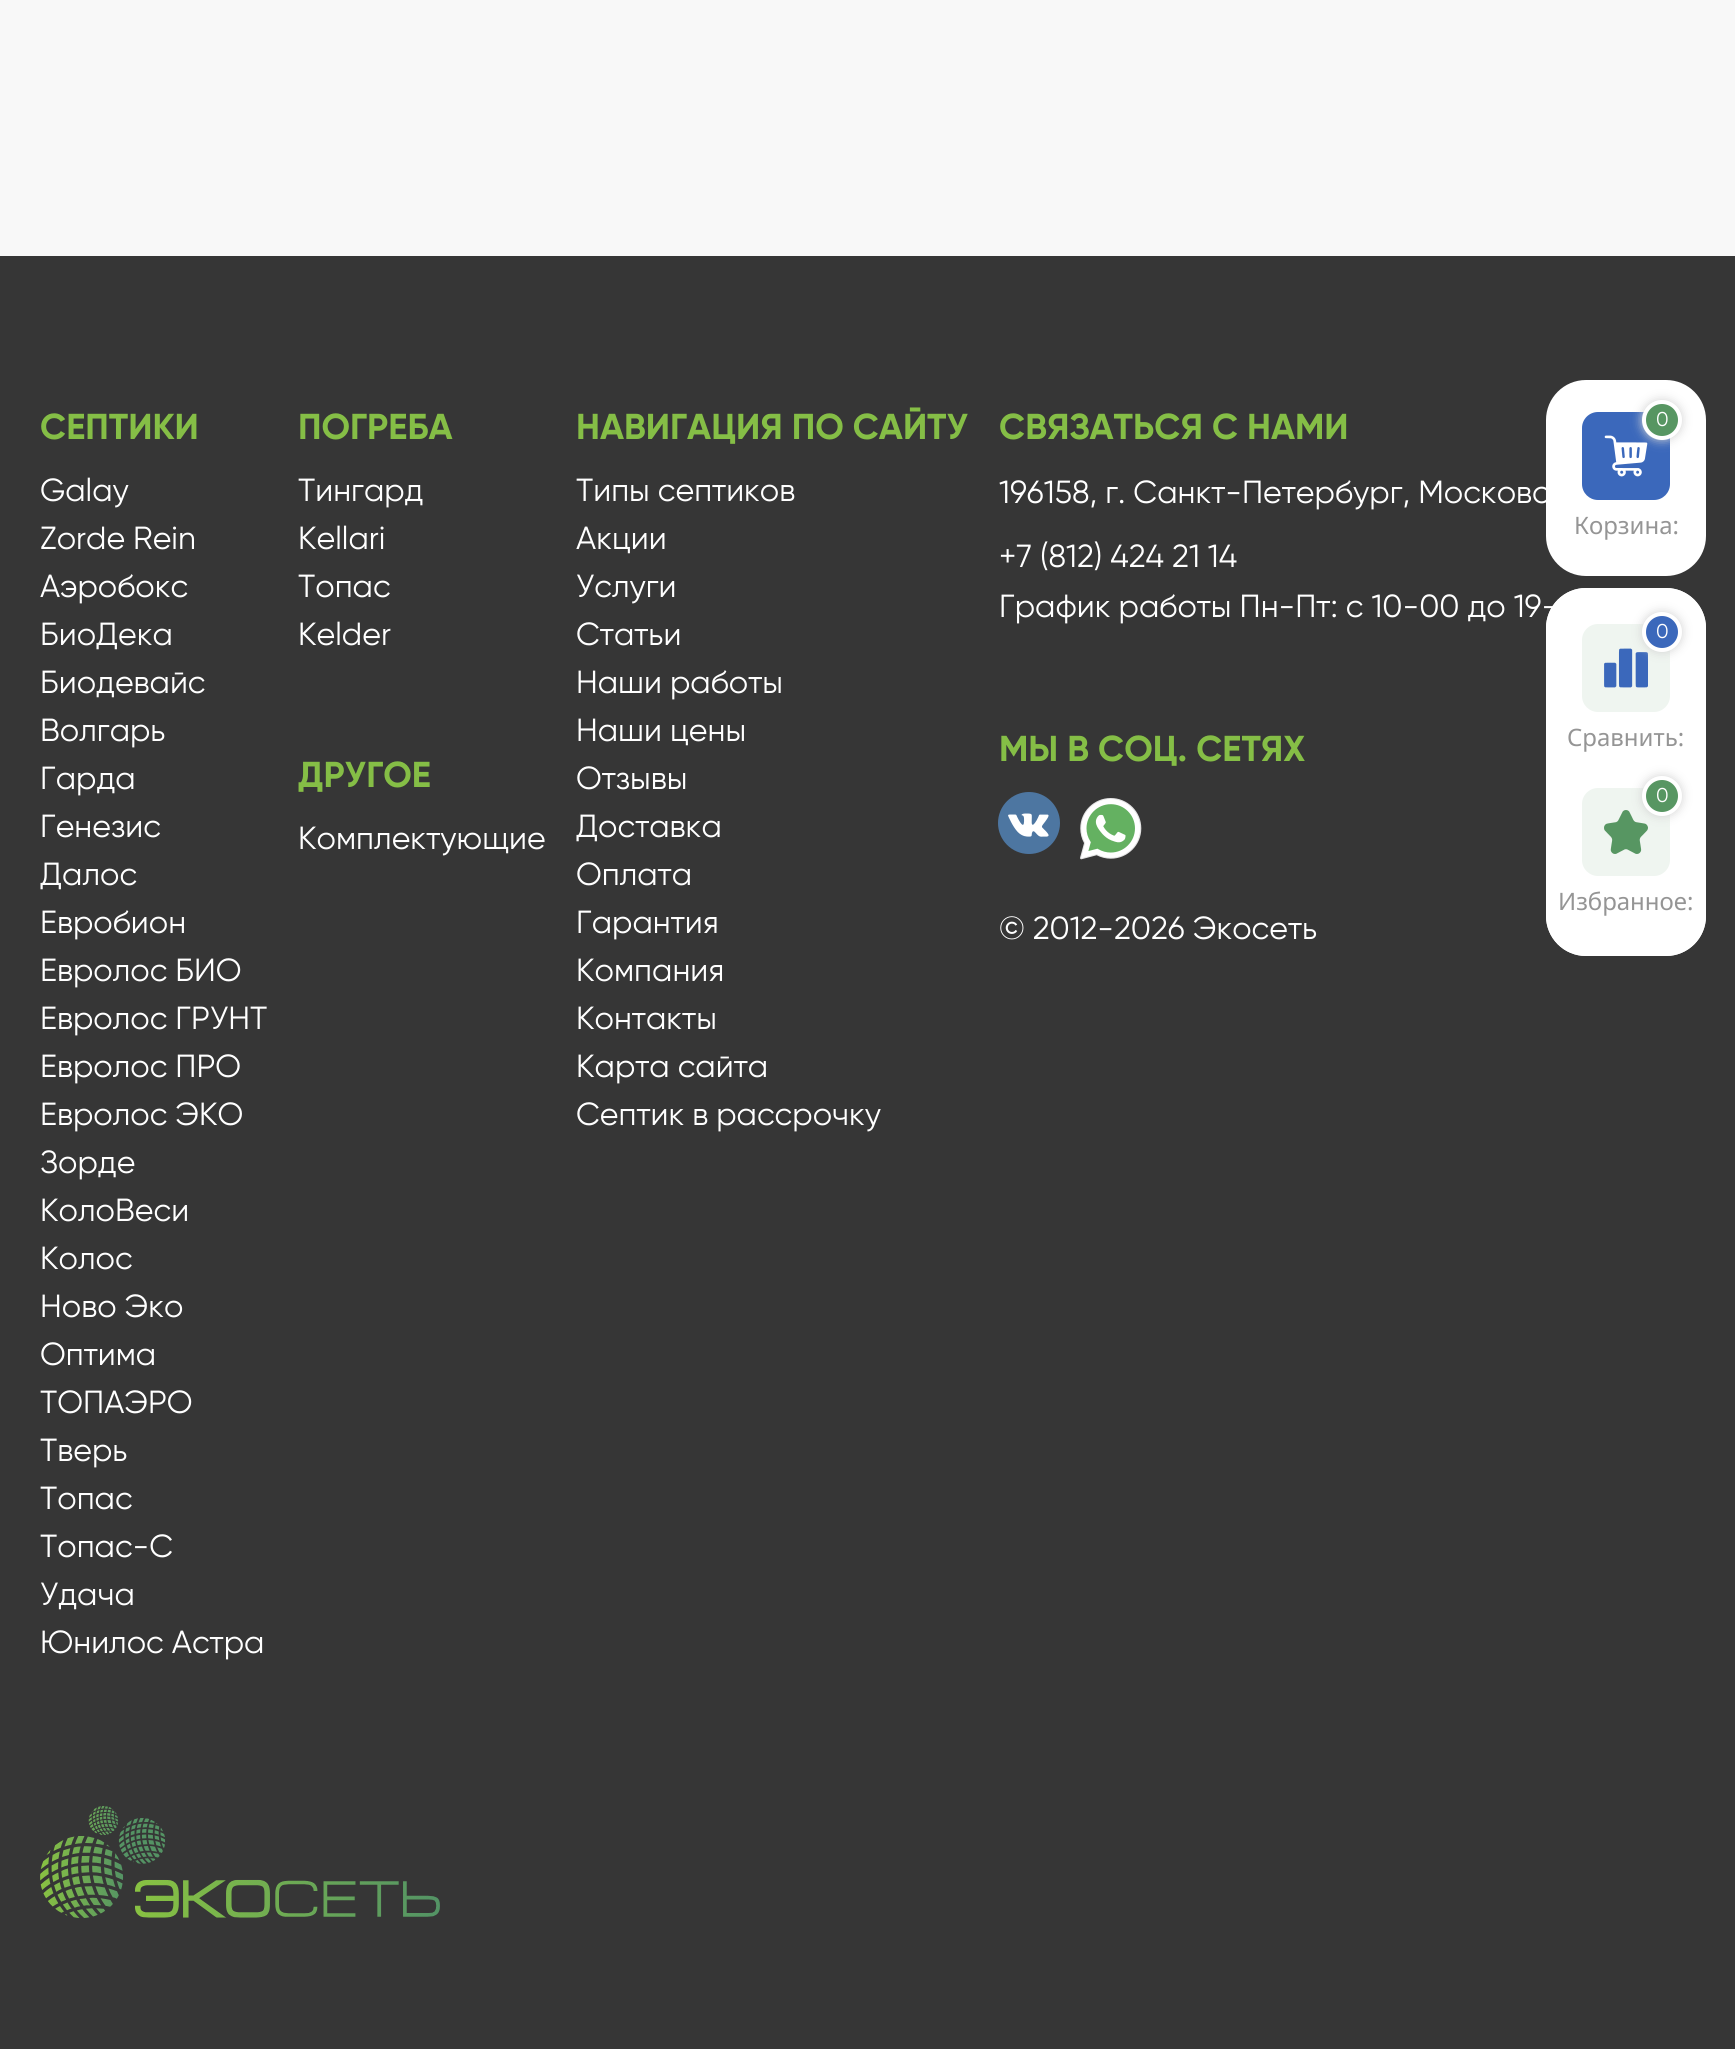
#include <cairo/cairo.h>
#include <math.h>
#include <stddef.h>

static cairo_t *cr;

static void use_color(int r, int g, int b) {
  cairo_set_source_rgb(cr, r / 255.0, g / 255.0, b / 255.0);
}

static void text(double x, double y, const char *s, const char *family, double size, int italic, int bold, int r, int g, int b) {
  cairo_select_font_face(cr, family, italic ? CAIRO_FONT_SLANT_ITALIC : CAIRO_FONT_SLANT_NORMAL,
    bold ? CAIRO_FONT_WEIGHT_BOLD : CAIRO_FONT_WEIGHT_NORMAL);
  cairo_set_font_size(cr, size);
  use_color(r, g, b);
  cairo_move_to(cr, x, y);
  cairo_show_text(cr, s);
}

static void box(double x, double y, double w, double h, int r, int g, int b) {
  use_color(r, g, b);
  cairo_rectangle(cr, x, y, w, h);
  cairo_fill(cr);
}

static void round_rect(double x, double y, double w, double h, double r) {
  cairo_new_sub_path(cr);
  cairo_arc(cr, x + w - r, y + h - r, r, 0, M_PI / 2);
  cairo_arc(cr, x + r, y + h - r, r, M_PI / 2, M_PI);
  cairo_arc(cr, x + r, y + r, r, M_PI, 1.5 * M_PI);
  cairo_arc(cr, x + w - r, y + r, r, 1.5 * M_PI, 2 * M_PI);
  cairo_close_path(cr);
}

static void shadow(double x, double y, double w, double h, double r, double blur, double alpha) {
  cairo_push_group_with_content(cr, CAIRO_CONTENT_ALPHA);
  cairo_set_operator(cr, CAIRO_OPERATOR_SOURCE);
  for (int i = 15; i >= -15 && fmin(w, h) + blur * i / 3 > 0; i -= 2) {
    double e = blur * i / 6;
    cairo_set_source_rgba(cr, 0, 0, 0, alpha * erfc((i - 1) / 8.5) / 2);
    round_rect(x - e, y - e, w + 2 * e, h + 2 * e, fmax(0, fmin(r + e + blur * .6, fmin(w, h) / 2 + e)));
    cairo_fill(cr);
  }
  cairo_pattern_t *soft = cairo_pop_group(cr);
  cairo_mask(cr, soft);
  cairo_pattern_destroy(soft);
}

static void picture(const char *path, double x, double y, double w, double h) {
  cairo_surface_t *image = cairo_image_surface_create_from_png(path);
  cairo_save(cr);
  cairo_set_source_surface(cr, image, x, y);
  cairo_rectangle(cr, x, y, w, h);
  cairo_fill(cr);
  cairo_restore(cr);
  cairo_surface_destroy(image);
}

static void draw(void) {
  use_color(248, 248, 248);
  cairo_paint(cr);
  box(0, 256, 1735, 1793, 54, 54, 54);
  picture("img_01.png", 998, 792, 62, 62);
  picture("img_02.png", 1080, 798, 62, 62);
  picture("img_03.png", 40, 1806, 400, 112);
  use_color(255, 255, 255);
  round_rect(1546, 380, 160, 196, 40);
  cairo_fill(cr);
  use_color(59, 104, 187);
  round_rect(1582, 412, 88, 88, 16);
  cairo_fill(cr);
  picture("img_04.png", 1604, 435, 44, 42);
  use_color(211, 211, 211);
  shadow(1642, 400, 40, 40, 20, 5, 1);
  use_color(87, 150, 98);
  cairo_arc(cr, 1662, 420, 18, 0, 2 * M_PI);
  cairo_fill_preserve(cr);
  use_color(255, 255, 255);
  cairo_set_line_width(cr, 4);
  cairo_stroke(cr);
  round_rect(1546, 588, 160, 368, 40);
  cairo_fill(cr);
  round_rect(1546, 588, 160, 168, 40);
  cairo_fill(cr);
  use_color(239, 245, 240);
  round_rect(1582, 624, 88, 88, 16);
  cairo_fill(cr);
  picture("img_05.png", 1604, 648, 44, 40);
  use_color(211, 211, 211);
  shadow(1642, 612, 40, 40, 20, 5, 1);
  use_color(59, 104, 187);
  cairo_arc(cr, 1662, 632, 18, 0, 2 * M_PI);
  cairo_fill_preserve(cr);
  use_color(255, 255, 255);
  cairo_stroke(cr);
  round_rect(1546, 788, 160, 168, 40);
  cairo_fill(cr);
  use_color(239, 245, 240);
  round_rect(1582, 788, 88, 88, 16);
  cairo_fill(cr);
  picture("img_06.png", 1604, 810, 44, 44);
  use_color(211, 211, 211);
  shadow(1642, 776, 40, 40, 20, 5, 1);
  use_color(87, 150, 98);
  cairo_arc(cr, 1662, 796, 18, 0, 2 * M_PI);
  cairo_fill_preserve(cr);
  use_color(255, 255, 255);
  cairo_stroke(cr);
  text(40, 439, "СЕПТИКИ", "Gilroy", 36, 0, 1, 133, 190, 70);
  text(40, 501, "Galay", "Gilroy", 32, 0, 0, 255, 255, 255);
  text(40, 549, "Zorde Rein", "Gilroy", 32, 0, 0, 255, 255, 255);
  text(40, 597, "Аэробокс", "Gilroy", 32, 0, 0, 255, 255, 255);
  text(40, 645, "БиоДека", "Gilroy", 32, 0, 0, 255, 255, 255);
  text(40, 693, "Биодевайс", "Gilroy", 32, 0, 0, 255, 255, 255);
  text(40, 741, "Волгарь", "Gilroy", 32, 0, 0, 255, 255, 255);
  text(40, 789, "Гарда", "Gilroy", 32, 0, 0, 255, 255, 255);
  text(40, 837, "Генезис", "Gilroy", 32, 0, 0, 255, 255, 255);
  text(40, 885, "Далос", "Gilroy", 32, 0, 0, 255, 255, 255);
  text(40, 933, "Евробион", "Gilroy", 32, 0, 0, 255, 255, 255);
  text(40, 981, "Евролос БИО", "Gilroy", 32, 0, 0, 255, 255, 255);
  text(40, 1029, "Евролос ГРУНТ", "Gilroy", 32, 0, 0, 255, 255, 255);
  text(40, 1077, "Евролос ПРО", "Gilroy", 32, 0, 0, 255, 255, 255);
  text(40, 1125, "Евролос ЭКО", "Gilroy", 32, 0, 0, 255, 255, 255);
  text(40, 1173, "Зорде", "Gilroy", 32, 0, 0, 255, 255, 255);
  text(40, 1221, "КолоВеси", "Gilroy", 32, 0, 0, 255, 255, 255);
  text(40, 1269, "Колос", "Gilroy", 32, 0, 0, 255, 255, 255);
  text(40, 1317, "Ново Эко", "Gilroy", 32, 0, 0, 255, 255, 255);
  text(40, 1365, "Оптима", "Gilroy", 32, 0, 0, 255, 255, 255);
  text(40, 1413, "ТОПАЭРО", "Gilroy", 32, 0, 0, 255, 255, 255);
  text(40, 1461, "Тверь", "Gilroy", 32, 0, 0, 255, 255, 255);
  text(40, 1509, "Топас", "Gilroy", 32, 0, 0, 255, 255, 255);
  text(40, 1557, "Топас-С", "Gilroy", 32, 0, 0, 255, 255, 255);
  text(40, 1605, "Удача", "Gilroy", 32, 0, 0, 255, 255, 255);
  text(40, 1653, "Юнилос Астра", "Gilroy", 32, 0, 0, 255, 255, 255);
  text(298, 439, "ПОГРЕБА", "Gilroy", 36, 0, 1, 133, 190, 70);
  text(298, 501, "Тингард", "Gilroy", 32, 0, 0, 255, 255, 255);
  text(298, 549, "Kellari", "Gilroy", 32, 0, 0, 255, 255, 255);
  text(298, 597, "Топас", "Gilroy", 32, 0, 0, 255, 255, 255);
  text(298, 645, "Kelder", "Gilroy", 32, 0, 0, 255, 255, 255);
  text(298, 787, "ДРУГОЕ", "Gilroy", 36, 0, 1, 133, 190, 70);
  text(298, 849, "Комплектующие", "Gilroy", 32, 0, 0, 255, 255, 255);
  text(576, 439, "НАВИГАЦИЯ ПО САЙТУ", "Gilroy", 36, 0, 1, 133, 190, 70);
  text(576, 501, "Типы септиков", "Gilroy", 32, 0, 0, 255, 255, 255);
  text(576, 549, "Акции", "Gilroy", 32, 0, 0, 255, 255, 255);
  text(576, 597, "Услуги", "Gilroy", 32, 0, 0, 255, 255, 255);
  text(576, 645, "Статьи", "Gilroy", 32, 0, 0, 255, 255, 255);
  text(576, 693, "Наши работы", "Gilroy", 32, 0, 0, 255, 255, 255);
  text(576, 741, "Наши цены", "Gilroy", 32, 0, 0, 255, 255, 255);
  text(576, 789, "Отзывы", "Gilroy", 32, 0, 0, 255, 255, 255);
  text(576, 837, "Доставка", "Gilroy", 32, 0, 0, 255, 255, 255);
  text(576, 885, "Оплата", "Gilroy", 32, 0, 0, 255, 255, 255);
  text(576, 933, "Гарантия", "Gilroy", 32, 0, 0, 255, 255, 255);
  text(576, 981, "Компания", "Gilroy", 32, 0, 0, 255, 255, 255);
  text(576, 1029, "Контакты", "Gilroy", 32, 0, 0, 255, 255, 255);
  text(576, 1077, "Карта сайта", "Gilroy", 32, 0, 0, 255, 255, 255);
  text(576, 1125, "Септик в рассрочку", "Gilroy", 32, 0, 0, 255, 255, 255);
  text(999, 439, "СВЯЗАТЬСЯ С НАМИ", "Gilroy", 36, 0, 1, 133, 190, 70);
  text(999, 503, "196158, г. Санкт-Петербург, Московс", "Gilroy", 32, 0, 0, 255, 255, 255);
  text(999, 567, "+7 (812) 424 21 14", "Gilroy", 32, 0, 0, 255, 255, 255);
  text(999, 617, "График работы Пн-Пт: с 10-00 до 19-", "Gilroy", 32, 0, 0, 255, 255, 255);
  text(999, 761, "МЫ В СОЦ. СЕТЯХ", "Gilroy", 36, 0, 1, 133, 190, 70);
  text(999, 939, "© 2012-2026 Экосеть", "Gilroy", 32, 0, 0, 255, 255, 255);
  text(1656, 426, "0", "Gilroy", 20, 0, 0, 255, 255, 255);
  text(1574, 534, "Корзина:", "Noto Sans", 24, 0, 0, 149, 149, 149);
  text(1656, 638, "0", "Gilroy", 20, 0, 0, 255, 255, 255);
  text(1567, 746, "Сравнить:", "Noto Sans", 24, 0, 0, 149, 149, 149);
  text(1656, 802, "0", "Gilroy", 20, 0, 0, 255, 255, 255);
  text(1558, 910, "Избранное:", "Noto Sans", 24, 0, 0, 149, 149, 149);
}

int main(void) {
  cairo_surface_t *surface = cairo_image_surface_create(CAIRO_FORMAT_RGB24, 1735, 2049);
  cr = cairo_create(surface);
  cairo_font_options_t *options = cairo_font_options_create();
  cairo_font_options_set_hint_metrics(options, CAIRO_HINT_METRICS_OFF);
  cairo_font_options_set_hint_style(options, CAIRO_HINT_STYLE_NONE);
  cairo_set_font_options(cr, options);
  cairo_set_miter_limit(cr, 4);
  draw();
  cairo_surface_write_to_png(surface, "out.png");
  cairo_font_options_destroy(options);
  cairo_destroy(cr);
  cairo_surface_destroy(surface);
  return 0;
}
